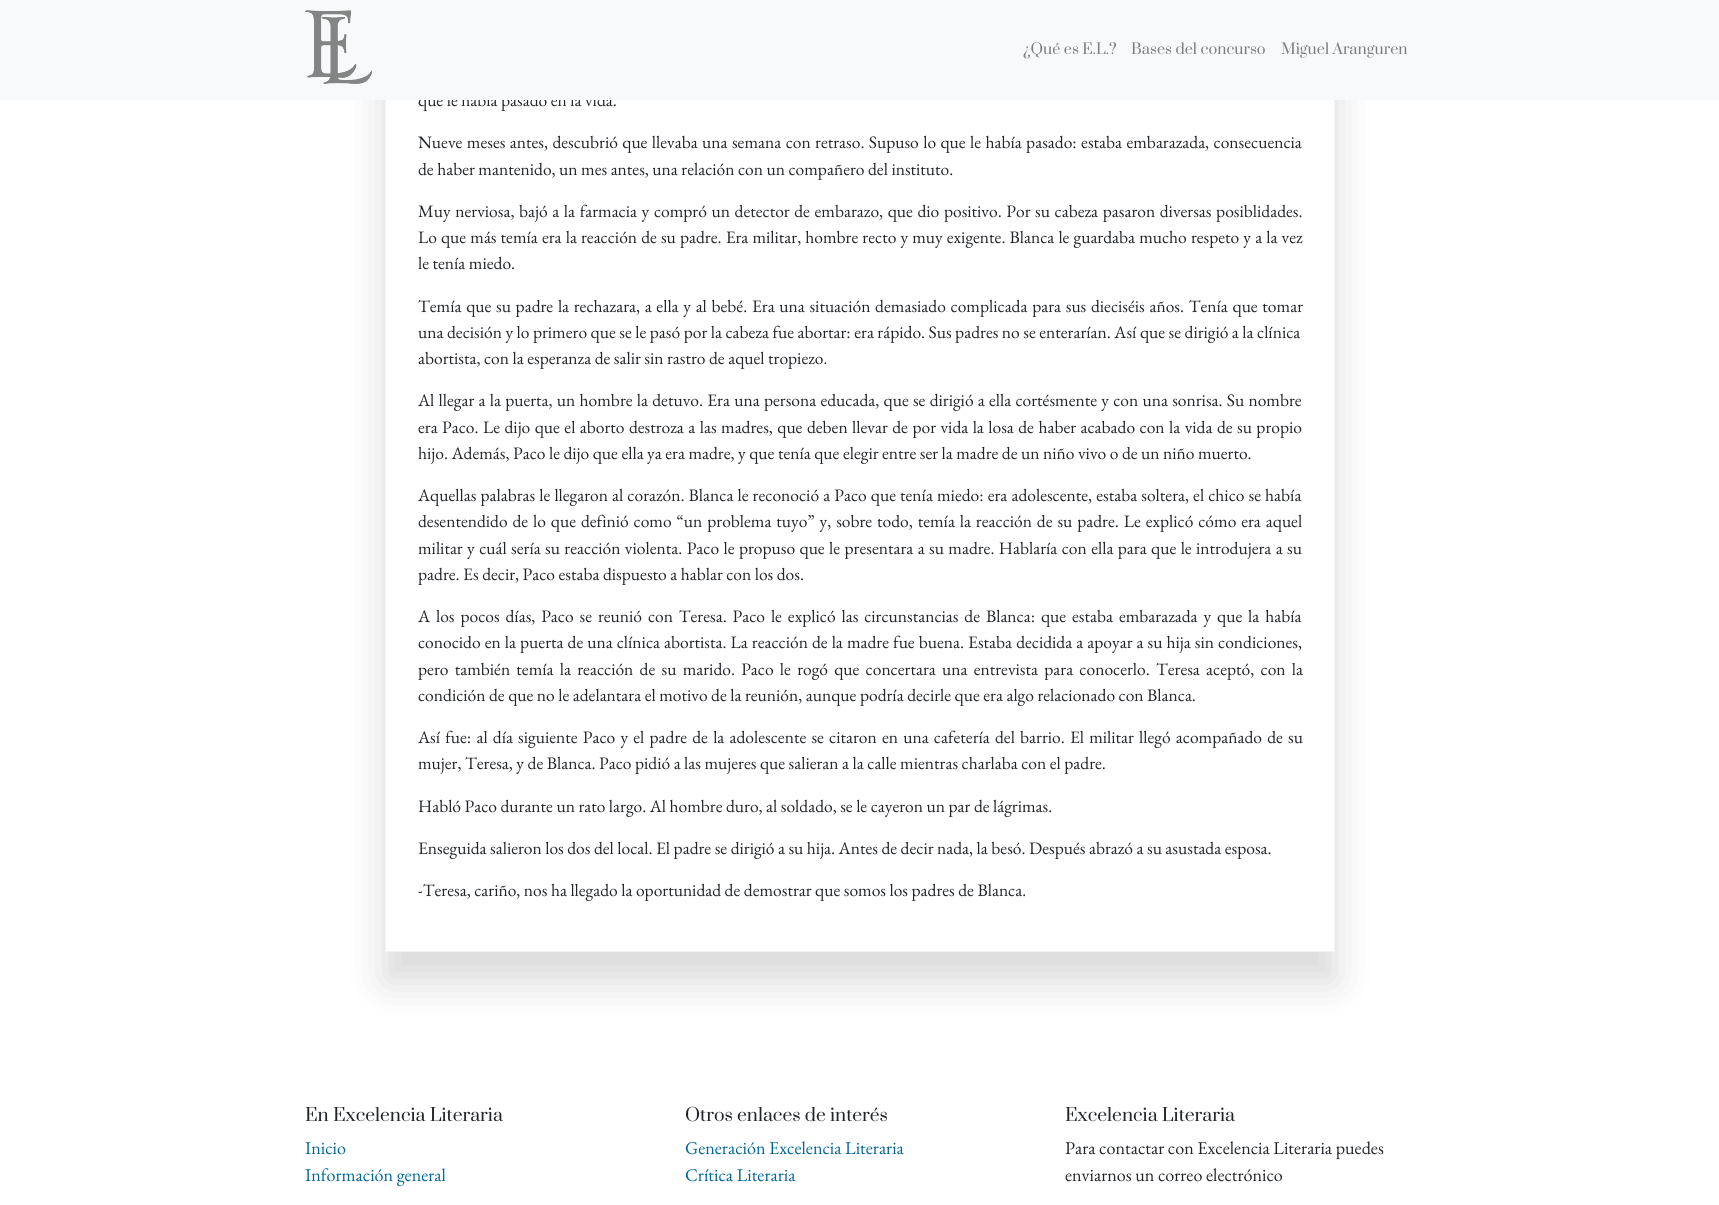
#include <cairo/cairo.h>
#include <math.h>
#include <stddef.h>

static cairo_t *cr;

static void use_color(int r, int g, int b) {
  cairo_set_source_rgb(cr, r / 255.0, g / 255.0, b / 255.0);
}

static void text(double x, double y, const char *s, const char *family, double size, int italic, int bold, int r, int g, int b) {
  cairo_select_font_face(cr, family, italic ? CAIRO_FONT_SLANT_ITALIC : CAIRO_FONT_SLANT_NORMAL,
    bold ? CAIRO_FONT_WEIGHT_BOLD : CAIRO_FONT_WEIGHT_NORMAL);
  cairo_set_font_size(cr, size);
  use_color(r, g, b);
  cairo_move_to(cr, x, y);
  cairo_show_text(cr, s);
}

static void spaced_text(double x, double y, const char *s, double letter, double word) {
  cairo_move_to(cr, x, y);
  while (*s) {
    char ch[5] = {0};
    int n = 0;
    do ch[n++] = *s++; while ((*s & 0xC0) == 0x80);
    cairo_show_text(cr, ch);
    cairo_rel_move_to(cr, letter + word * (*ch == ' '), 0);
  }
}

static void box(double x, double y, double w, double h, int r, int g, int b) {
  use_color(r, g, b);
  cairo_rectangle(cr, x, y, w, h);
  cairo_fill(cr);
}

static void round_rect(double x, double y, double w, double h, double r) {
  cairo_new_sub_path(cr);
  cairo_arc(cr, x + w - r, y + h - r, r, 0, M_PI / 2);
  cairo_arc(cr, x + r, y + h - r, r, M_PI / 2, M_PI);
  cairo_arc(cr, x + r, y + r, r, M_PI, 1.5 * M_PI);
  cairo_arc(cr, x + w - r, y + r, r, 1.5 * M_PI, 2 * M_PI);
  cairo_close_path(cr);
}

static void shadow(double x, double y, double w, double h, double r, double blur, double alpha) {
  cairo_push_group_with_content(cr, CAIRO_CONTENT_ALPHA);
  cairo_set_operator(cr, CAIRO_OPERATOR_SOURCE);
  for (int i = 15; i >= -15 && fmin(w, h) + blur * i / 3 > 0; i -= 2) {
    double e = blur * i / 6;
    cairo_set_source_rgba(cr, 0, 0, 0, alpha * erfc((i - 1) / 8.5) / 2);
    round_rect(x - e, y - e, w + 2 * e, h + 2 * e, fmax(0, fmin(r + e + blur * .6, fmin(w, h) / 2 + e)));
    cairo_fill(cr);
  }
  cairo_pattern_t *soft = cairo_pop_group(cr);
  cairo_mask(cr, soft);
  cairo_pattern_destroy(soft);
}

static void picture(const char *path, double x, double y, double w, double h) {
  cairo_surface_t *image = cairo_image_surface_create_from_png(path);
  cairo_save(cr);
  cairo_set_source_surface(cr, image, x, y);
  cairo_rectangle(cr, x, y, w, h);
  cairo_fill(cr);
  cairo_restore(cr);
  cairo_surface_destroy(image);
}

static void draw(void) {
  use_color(255, 255, 255);
  cairo_paint(cr);
  cairo_save(cr);
  cairo_set_fill_rule(cr, CAIRO_FILL_RULE_EVEN_ODD);
  cairo_new_path(cr);
  cairo_move_to(cr, 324, 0);
  cairo_line_to(cr, 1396, 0);
  cairo_line_to(cr, 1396, 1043);
  cairo_line_to(cr, 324, 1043);
  cairo_close_path(cr);
  cairo_move_to(cr, 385, -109);
  cairo_line_to(cr, 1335, -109);
  cairo_line_to(cr, 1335, 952);
  cairo_line_to(cr, 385, 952);
  cairo_close_path(cr);
  cairo_clip(cr);
  use_color(1, 1, 1);
  shadow(385, -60, 950, 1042, 0, 20, 0.15);
  cairo_restore(cr);
  cairo_rectangle(cr, 385.5, -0.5, 949, 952);
  use_color(243, 243, 243);
  cairo_set_line_width(cr, 1);
  cairo_stroke(cr);
  text(418, 106, "que le había pasado en la vida.", "EB Garamond", 17.5, 0, 0, 33, 37, 41);
  box(0, 0, 1719, 100, 248, 249, 250);
  picture("img_01.png", 305, 10, 67, 74);
  text(1281, 54, "Miguel Aranguren", "Prata", 14.5, 0, 0, 124, 125, 125);
  text(1131, 54, "Bases del concurso", "Prata", 14.5, 0, 0, 124, 125, 125);
  text(1023, 54, "¿Qué es E.L.?", "Prata", 14.5, 0, 0, 124, 125, 125);
  cairo_select_font_face(cr, "EB Garamond", CAIRO_FONT_SLANT_NORMAL, CAIRO_FONT_WEIGHT_NORMAL);
  cairo_set_font_size(cr, 17.5);
  use_color(33, 37, 41);
  spaced_text(418, 148, "Nueve meses antes, descubrió que llevaba una semana con retraso. Supuso lo que le había pasado: estaba embarazada, consecuencia", 0, 0.9);
  text(418, 175, "de haber mantenido, un mes antes, una relación con un compañero del instituto.", "EB Garamond", 17.5, 0, 0, 33, 37, 41);
  spaced_text(418, 217, "Muy nerviosa, bajó a la farmacia y compró un detector de embarazo, que dio positivo. Por su cabeza pasaron diversas posiblidades.", 0, 1.1);
  spaced_text(418, 243, "Lo que más temía era la reacción de su padre. Era militar, hombre recto y muy exigente. Blanca le guardaba mucho respeto y a la vez", 0, 0.6);
  text(418, 269, "le tenía miedo.", "EB Garamond", 17.5, 0, 0, 33, 37, 41);
  spaced_text(418, 312, "Temía que su padre la rechazara, a ella y al bebé. Era una situación demasiado complicada para sus dieciséis años. Tenía que tomar", 0, 1.2);
  text(418, 338, "una decisión y lo primero que se le pasó por la cabeza fue abortar: era rápido. Sus padres no se enterarían. Así que se dirigió a la clínica", "EB Garamond", 17.5, 0, 0, 33, 37, 41);
  text(418, 364, "abortista, con la esperanza de salir sin rastro de aquel tropiezo.", "EB Garamond", 17.5, 0, 0, 33, 37, 41);
  spaced_text(418, 406, "Al llegar a la puerta, un hombre la detuvo. Era una persona educada, que se dirigió a ella cortésmente y con una sonrisa. Su nombre", 0, 0.75);
  spaced_text(418, 433, "era Paco. Le dijo que el aborto destroza a las madres, que deben llevar de por vida la losa de haber acabado con la vida de su propio", 0, 0.95);
  text(418, 459, "hijo. Además, Paco le dijo que ella ya era madre, y que tenía que elegir entre ser la madre de un niño vivo o de un niño muerto.", "EB Garamond", 17.5, 0, 0, 33, 37, 41);
  spaced_text(418, 501, "Aquellas palabras le llegaron al corazón. Blanca le reconoció a Paco que tenía miedo: era adolescente, estaba soltera, el chico se había", 0, 0.6);
  spaced_text(418, 527, "desentendido de lo que definió como “un problema tuyo” y, sobre todo, temía la reacción de su padre. Le explicó cómo era aquel", 0, 1.4);
  spaced_text(418, 554, "militar y cuál sería su reacción violenta. Paco le propuso que le presentara a su madre. Hablaría con ella para que le introdujera a su", 0, 0.9);
  text(418, 580, "padre. Es decir, Paco estaba dispuesto a hablar con los dos.", "EB Garamond", 17.5, 0, 0, 33, 37, 41);
  spaced_text(418, 622, "A los pocos días, Paco se reunió con Teresa. Paco le explicó las circunstancias de Blanca: que estaba embarazada y que la había", 0, 2.4);
  spaced_text(418, 648, "conocido en la puerta de una clínica abortista. La reacción de la madre fue buena. Estaba decidida a apoyar a su hija sin condiciones,", 0, 0.55);
  spaced_text(418, 675, "pero también temía la reacción de su marido. Paco le rogó que concertara una entrevista para conocerlo. Teresa aceptó, con la", 0, 2.75);
  text(418, 701, "condición de que no le adelantara el motivo de la reunión, aunque podría decirle que era algo relacionado con Blanca.", "EB Garamond", 17.5, 0, 0, 33, 37, 41);
  spaced_text(418, 743, "Así fue: al día siguiente Paco y el padre de la adolescente se citaron en una cafetería del barrio. El militar llegó acompañado de su", 0, 1.7);
  text(418, 769, "mujer, Teresa, y de Blanca. Paco pidió a las mujeres que salieran a la calle mientras charlaba con el padre.", "EB Garamond", 17.5, 0, 0, 33, 37, 41);
  text(418, 812, "Habló Paco durante un rato largo. Al hombre duro, al soldado, se le cayeron un par de lágrimas.", "EB Garamond", 17.5, 0, 0, 33, 37, 41);
  text(418, 854, "Enseguida salieron los dos del local. El padre se dirigió a su hija. Antes de decir nada, la besó. Después abrazó a su asustada esposa.", "EB Garamond", 17.5, 0, 0, 33, 37, 41);
  text(418, 896, "-Teresa, cariño, nos ha llegado la oportunidad de demostrar que somos los padres de Blanca.", "EB Garamond", 17.5, 0, 0, 33, 37, 41);
  text(305, 1121, "En Excelencia Literaria", "Prata", 17.5, 0, 0, 33, 37, 41);
  text(305, 1154, "Inicio", "EB Garamond", 18.1, 0, 0, 0, 102, 153);
  text(305, 1181, "Información general", "EB Garamond", 18.1, 0, 0, 0, 102, 153);
  text(685, 1121, "Otros enlaces de interés", "Prata", 17.5, 0, 0, 33, 37, 41);
  text(685, 1154, "Generación Excelencia Literaria", "EB Garamond", 18.1, 0, 0, 0, 102, 153);
  text(685, 1181, "Crítica Literaria", "EB Garamond", 18.1, 0, 0, 0, 102, 153);
  text(1065, 1121, "Excelencia Literaria", "Prata", 17.5, 0, 0, 33, 37, 41);
  text(1065, 1154, "Para contactar con Excelencia Literaria puedes", "EB Garamond", 18.1, 0, 0, 33, 37, 41);
  text(1065, 1181, "enviarnos un correo electrónico", "EB Garamond", 18.1, 0, 0, 33, 37, 41);
}

int main(void) {
  cairo_surface_t *surface = cairo_image_surface_create(CAIRO_FORMAT_RGB24, 1719, 1205);
  cr = cairo_create(surface);
  cairo_font_options_t *options = cairo_font_options_create();
  cairo_font_options_set_hint_metrics(options, CAIRO_HINT_METRICS_OFF);
  cairo_font_options_set_hint_style(options, CAIRO_HINT_STYLE_NONE);
  cairo_set_font_options(cr, options);
  cairo_set_miter_limit(cr, 4);
  draw();
  cairo_surface_write_to_png(surface, "out.png");
  cairo_font_options_destroy(options);
  cairo_destroy(cr);
  cairo_surface_destroy(surface);
  return 0;
}
